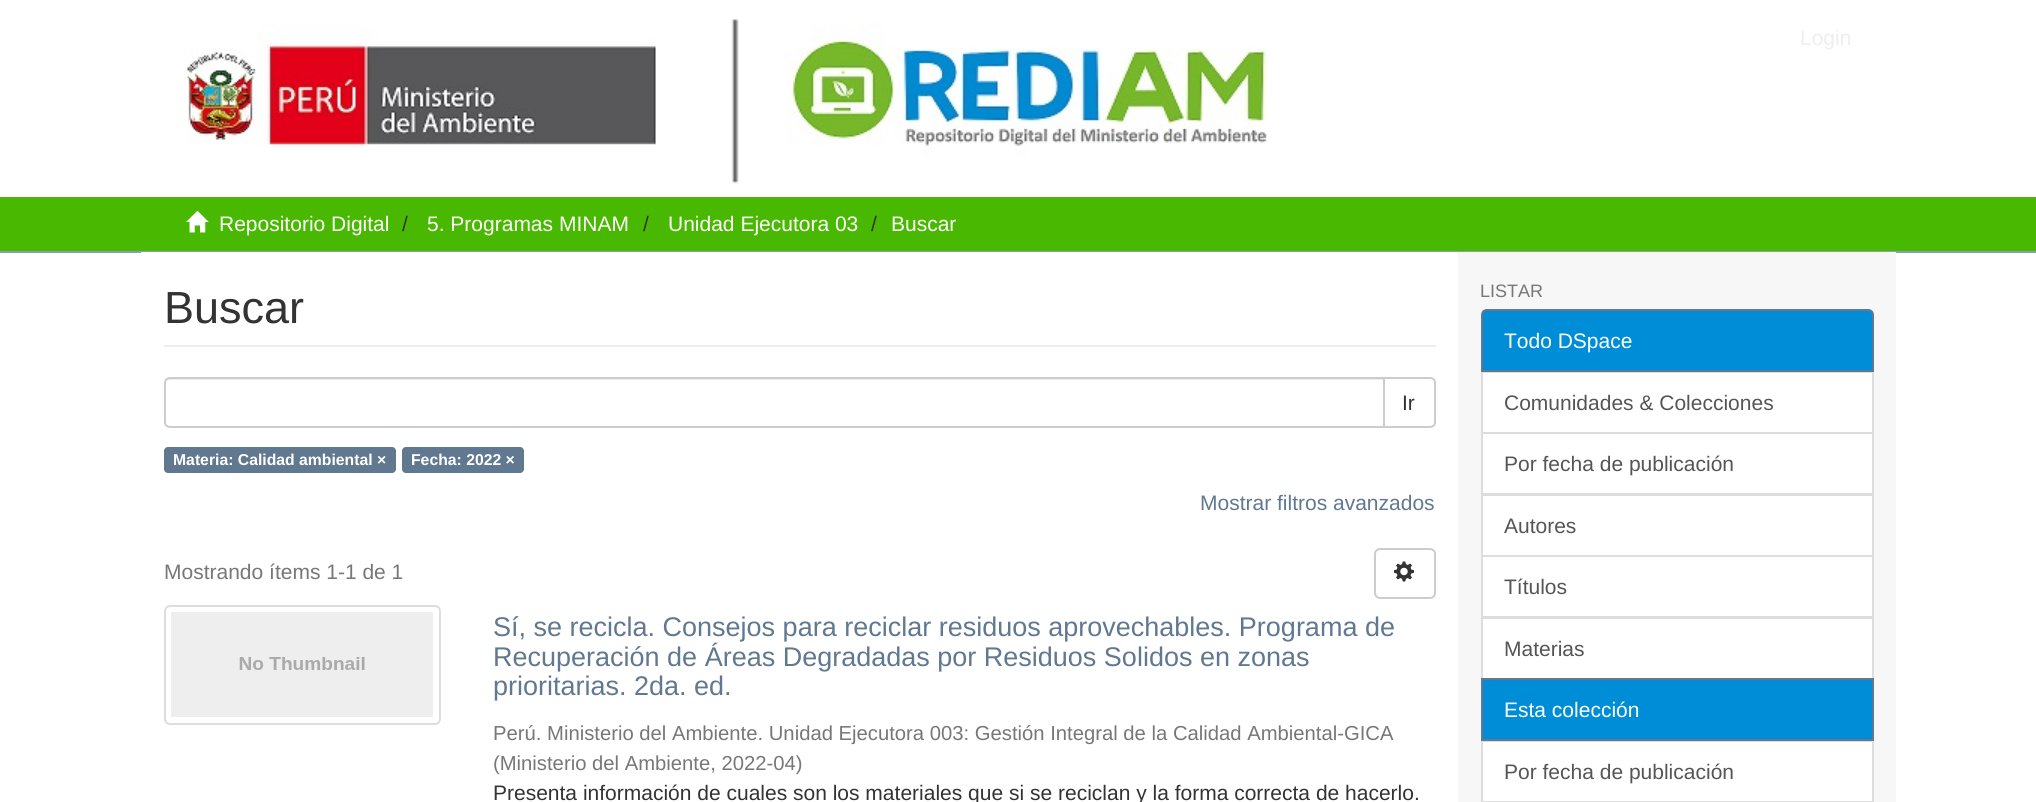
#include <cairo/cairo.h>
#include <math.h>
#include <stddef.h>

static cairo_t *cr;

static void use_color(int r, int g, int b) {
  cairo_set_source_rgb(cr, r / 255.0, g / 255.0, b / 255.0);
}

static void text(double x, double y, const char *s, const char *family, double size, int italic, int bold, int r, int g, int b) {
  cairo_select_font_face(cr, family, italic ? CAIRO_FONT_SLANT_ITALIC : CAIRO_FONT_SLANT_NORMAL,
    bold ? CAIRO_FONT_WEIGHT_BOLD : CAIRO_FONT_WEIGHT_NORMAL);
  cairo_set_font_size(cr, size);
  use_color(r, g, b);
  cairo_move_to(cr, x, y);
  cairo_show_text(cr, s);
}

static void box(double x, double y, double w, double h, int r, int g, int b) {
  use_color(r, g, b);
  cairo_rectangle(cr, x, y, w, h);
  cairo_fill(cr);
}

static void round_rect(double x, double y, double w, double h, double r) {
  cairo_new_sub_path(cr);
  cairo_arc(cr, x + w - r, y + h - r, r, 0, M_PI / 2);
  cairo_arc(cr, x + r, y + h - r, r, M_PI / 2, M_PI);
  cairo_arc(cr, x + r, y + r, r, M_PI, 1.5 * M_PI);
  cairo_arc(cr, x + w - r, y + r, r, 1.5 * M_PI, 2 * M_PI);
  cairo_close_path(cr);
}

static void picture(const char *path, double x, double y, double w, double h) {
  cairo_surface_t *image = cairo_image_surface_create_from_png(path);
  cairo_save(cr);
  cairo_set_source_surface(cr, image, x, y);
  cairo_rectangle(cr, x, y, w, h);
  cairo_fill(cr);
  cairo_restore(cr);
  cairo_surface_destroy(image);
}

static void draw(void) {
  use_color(255, 255, 255);
  cairo_paint(cr);
  picture("img_01.png", 186, 19, 1081, 165);
  box(0, 197, 2036, 54, 72, 184, 0);
  box(0, 251, 2036, 2, 139, 158, 178);
  picture("img_02.png", 186, 210, 23, 23);
  box(1458, 252, 438, 550, 247, 247, 247);
  box(141, 252, 1317, 1, 255, 255, 255);
  box(164, 345, 1272, 2, 238, 238, 238);
  cairo_new_path(cr);
  cairo_move_to(cr, 1384, 378);
  cairo_line_to(cr, 1430, 378);
  cairo_curve_to(cr, 1433, 378, 1435, 380, 1435, 383);
  cairo_line_to(cr, 1435, 422);
  cairo_curve_to(cr, 1435, 425, 1433, 427, 1430, 427);
  cairo_line_to(cr, 1384, 427);
  cairo_close_path(cr);
  use_color(204, 204, 204);
  cairo_stroke(cr);
  use_color(255, 255, 255);
  cairo_new_path(cr);
  cairo_move_to(cr, 170, 377);
  cairo_line_to(cr, 1385, 377);
  cairo_line_to(cr, 1385, 428);
  cairo_line_to(cr, 170, 428);
  cairo_curve_to(cr, 166.5, 428, 164, 425.5, 164, 422);
  cairo_line_to(cr, 164, 383);
  cairo_curve_to(cr, 164, 379.5, 166.5, 377, 170, 377);
  cairo_close_path(cr);
  cairo_fill(cr);
  use_color(236, 236, 236);
  cairo_new_path(cr);
  cairo_move_to(cr, 170, 380);
  cairo_line_to(cr, 1383, 380);
  cairo_line_to(cr, 1383, 378);
  cairo_line_to(cr, 170, 378);
  cairo_curve_to(cr, 167, 378, 165, 381, 165, 384);
  cairo_curve_to(cr, 165, 382, 167, 380, 170, 380);
  cairo_close_path(cr);
  cairo_fill(cr);
  cairo_new_path(cr);
  cairo_move_to(cr, 170, 378);
  cairo_line_to(cr, 1384, 378);
  cairo_line_to(cr, 1384, 427);
  cairo_line_to(cr, 170, 427);
  cairo_curve_to(cr, 167, 427, 165, 425, 165, 422);
  cairo_line_to(cr, 165, 383);
  cairo_curve_to(cr, 165, 380, 167, 378, 170, 378);
  cairo_close_path(cr);
  use_color(204, 204, 204);
  cairo_stroke(cr);
  use_color(96, 120, 144);
  round_rect(164, 447, 232, 26, 4);
  cairo_fill(cr);
  round_rect(402, 447, 122, 26, 4);
  cairo_fill(cr);
  round_rect(1375, 549, 60, 49, 5);
  use_color(204, 204, 204);
  cairo_stroke(cr);
  picture("img_03.png", 1393, 561, 22, 21);
  round_rect(165, 606, 275, 118, 5);
  use_color(221, 221, 221);
  cairo_stroke(cr);
  picture("img_04.png", 171, 612, 262, 105);
  use_color(255, 255, 255);
  cairo_rectangle(cr, 1482, 372, 391, 61);
  cairo_fill_preserve(cr);
  use_color(221, 221, 221);
  cairo_stroke(cr);
  use_color(0, 141, 215);
  cairo_new_path(cr);
  cairo_move_to(cr, 1487, 310);
  cairo_line_to(cr, 1868, 310);
  cairo_curve_to(cr, 1871, 310, 1873, 312, 1873, 315);
  cairo_line_to(cr, 1873, 371);
  cairo_line_to(cr, 1482, 371);
  cairo_line_to(cr, 1482, 315);
  cairo_curve_to(cr, 1482, 312, 1484, 310, 1487, 310);
  cairo_close_path(cr);
  cairo_fill_preserve(cr);
  use_color(96, 120, 144);
  cairo_stroke(cr);
  use_color(255, 255, 255);
  cairo_rectangle(cr, 1482, 433, 391, 61);
  cairo_fill_preserve(cr);
  use_color(221, 221, 221);
  cairo_stroke(cr);
  use_color(255, 255, 255);
  cairo_rectangle(cr, 1482, 495, 391, 61);
  cairo_fill_preserve(cr);
  use_color(221, 221, 221);
  cairo_stroke(cr);
  use_color(255, 255, 255);
  cairo_rectangle(cr, 1482, 556, 391, 61);
  cairo_fill_preserve(cr);
  use_color(221, 221, 221);
  cairo_stroke(cr);
  use_color(255, 255, 255);
  cairo_rectangle(cr, 1482, 618, 391, 61);
  cairo_fill_preserve(cr);
  use_color(221, 221, 221);
  cairo_stroke(cr);
  use_color(255, 255, 255);
  cairo_rectangle(cr, 1482, 741, 391, 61);
  cairo_fill_preserve(cr);
  use_color(221, 221, 221);
  cairo_stroke(cr);
  use_color(0, 141, 215);
  cairo_rectangle(cr, 1482, 679, 391, 61);
  cairo_fill_preserve(cr);
  use_color(96, 120, 144);
  cairo_stroke(cr);
  text(1800, 45, "Login", "Liberation Sans", 21, 0, 0, 238, 238, 238);
  text(219, 231, "Repositorio Digital", "Liberation Sans", 21, 0, 0, 255, 255, 255);
  text(402, 231, "/", "Liberation Sans", 21, 0, 0, 51, 51, 51);
  text(427, 231, "5. Programas MINAM", "Liberation Sans", 21, 0, 0, 255, 255, 255);
  text(643, 231, "/", "Liberation Sans", 21, 0, 0, 51, 51, 51);
  text(668, 231, "Unidad Ejecutora 03", "Liberation Sans", 21, 0, 0, 255, 255, 255);
  text(871, 231, "/", "Liberation Sans", 21, 0, 0, 51, 51, 51);
  text(891, 231, "Buscar", "Liberation Sans", 21, 0, 0, 255, 255, 255);
  text(164, 323, "Buscar", "Liberation Sans", 45, 0, 0, 51, 51, 51);
  text(1402, 410, "Ir", "Liberation Sans", 21, 0, 0, 51, 51, 51);
  text(173, 465, "Materia: Calidad ambiental ×", "Liberation Sans", 15.75, 0, 1, 255, 255, 255);
  text(411, 465, "Fecha: 2022 ×", "Liberation Sans", 15.75, 0, 1, 255, 255, 255);
  text(1200, 510, "Mostrar filtros avanzados", "Liberation Sans", 21, 0, 0, 96, 120, 144);
  text(164, 579, "Mostrando ítems 1-1 de 1", "Liberation Sans", 21, 0, 0, 119, 119, 119);
  text(493, 636, "Sí, se recicla. Consejos para reciclar residuos aprovechables. Programa de", "Liberation Sans", 27, 0, 0, 96, 120, 144);
  text(493, 666, "Recuperación de Áreas Degradadas por Residuos Solidos en zonas", "Liberation Sans", 27, 0, 0, 96, 120, 144);
  text(493, 695, "prioritarias. 2da. ed.", "Liberation Sans", 27, 0, 0, 96, 120, 144);
  text(493, 740, "Perú. Ministerio del Ambiente. Unidad Ejecutora 003: Gestión Integral de la Calidad Ambiental-GICA", "Liberation Sans", 20.25, 0, 0, 119, 119, 119);
  text(493, 770, "(Ministerio del Ambiente, 2022-04)", "Liberation Sans", 20.25, 0, 0, 119, 119, 119);
  text(493, 800, "Presenta información de cuales son los materiales que si se reciclan y la forma correcta de hacerlo.", "Liberation Sans", 21, 0, 0, 51, 51, 51);
  text(1480, 297, "LISTAR", "Liberation Sans", 18, 0, 0, 119, 119, 119);
  text(1504, 348, "Todo DSpace", "Liberation Sans", 21, 0, 0, 255, 255, 255);
  text(1504, 410, "Comunidades & Colecciones", "Liberation Sans", 21, 0, 0, 85, 85, 85);
  text(1504, 471, "Por fecha de publicación", "Liberation Sans", 21, 0, 0, 85, 85, 85);
  text(1504, 533, "Autores", "Liberation Sans", 21, 0, 0, 85, 85, 85);
  text(1504, 594, "Títulos", "Liberation Sans", 21, 0, 0, 85, 85, 85);
  text(1504, 656, "Materias", "Liberation Sans", 21, 0, 0, 85, 85, 85);
  text(1504, 717, "Esta colección", "Liberation Sans", 21, 0, 0, 255, 255, 255);
  text(1504, 779, "Por fecha de publicación", "Liberation Sans", 21, 0, 0, 85, 85, 85);
}

int main(void) {
  cairo_surface_t *surface = cairo_image_surface_create(CAIRO_FORMAT_RGB24, 2036, 802);
  cr = cairo_create(surface);
  cairo_font_options_t *options = cairo_font_options_create();
  cairo_font_options_set_hint_metrics(options, CAIRO_HINT_METRICS_OFF);
  cairo_font_options_set_hint_style(options, CAIRO_HINT_STYLE_NONE);
  cairo_set_font_options(cr, options);
  cairo_set_miter_limit(cr, 4);
  draw();
  cairo_surface_write_to_png(surface, "out.png");
  cairo_font_options_destroy(options);
  cairo_destroy(cr);
  cairo_surface_destroy(surface);
  return 0;
}
